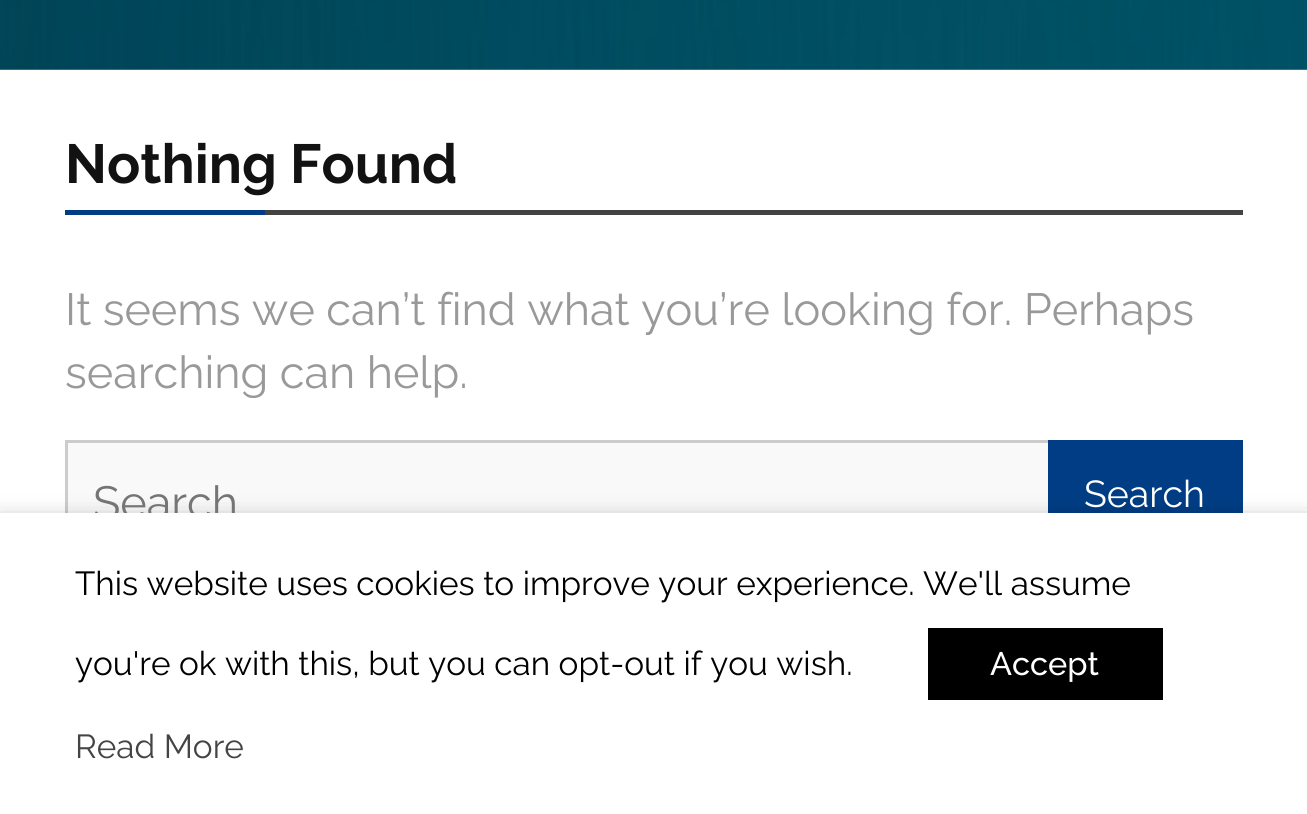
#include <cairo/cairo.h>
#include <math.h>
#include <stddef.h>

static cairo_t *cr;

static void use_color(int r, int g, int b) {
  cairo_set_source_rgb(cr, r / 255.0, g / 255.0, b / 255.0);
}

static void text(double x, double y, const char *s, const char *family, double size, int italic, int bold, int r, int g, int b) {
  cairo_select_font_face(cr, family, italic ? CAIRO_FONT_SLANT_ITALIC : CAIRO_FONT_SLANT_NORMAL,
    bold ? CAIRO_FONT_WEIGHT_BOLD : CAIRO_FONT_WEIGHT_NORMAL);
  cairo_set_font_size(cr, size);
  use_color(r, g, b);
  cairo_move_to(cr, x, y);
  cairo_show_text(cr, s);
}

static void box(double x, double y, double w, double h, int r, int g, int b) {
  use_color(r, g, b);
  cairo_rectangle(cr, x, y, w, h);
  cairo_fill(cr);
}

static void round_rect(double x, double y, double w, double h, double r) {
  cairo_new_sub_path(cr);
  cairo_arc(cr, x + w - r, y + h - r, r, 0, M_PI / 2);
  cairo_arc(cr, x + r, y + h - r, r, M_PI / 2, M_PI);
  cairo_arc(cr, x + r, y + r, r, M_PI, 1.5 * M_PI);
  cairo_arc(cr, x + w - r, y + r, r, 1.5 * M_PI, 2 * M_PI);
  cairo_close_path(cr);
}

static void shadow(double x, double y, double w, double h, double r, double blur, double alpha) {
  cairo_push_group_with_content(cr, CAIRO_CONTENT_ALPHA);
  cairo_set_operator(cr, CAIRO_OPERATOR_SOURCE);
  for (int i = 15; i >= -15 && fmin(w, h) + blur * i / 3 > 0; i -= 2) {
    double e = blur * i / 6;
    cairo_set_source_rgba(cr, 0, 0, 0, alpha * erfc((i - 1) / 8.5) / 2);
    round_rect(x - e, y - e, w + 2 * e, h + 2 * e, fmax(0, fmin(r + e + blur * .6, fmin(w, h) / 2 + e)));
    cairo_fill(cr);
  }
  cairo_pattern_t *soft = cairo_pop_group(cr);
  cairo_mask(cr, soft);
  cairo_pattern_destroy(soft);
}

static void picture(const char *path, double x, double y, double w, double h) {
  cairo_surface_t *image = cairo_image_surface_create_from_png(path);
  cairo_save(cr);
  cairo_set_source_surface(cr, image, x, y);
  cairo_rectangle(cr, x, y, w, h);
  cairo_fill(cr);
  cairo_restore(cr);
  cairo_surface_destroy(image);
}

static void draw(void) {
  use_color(255, 255, 255);
  cairo_paint(cr);
  box(0, 69, 1307, 1, 140, 140, 140);
  picture("img_01.png", 0, 0, 1307, 70);
  box(265, 210, 978, 5, 67, 67, 67);
  box(65, 210, 200, 5, 0, 61, 132);
  box(68, 443, 980, 70, 249, 249, 249);
  cairo_rectangle(cr, 66.5, 441.5, 1175, 120);
  use_color(204, 204, 204);
  cairo_set_line_width(cr, 3);
  cairo_stroke(cr);
  box(1048, 440, 195, 73, 0, 61, 132);
  use_color(0, 0, 0);
  shadow(0, 525, 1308, 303, 0, 12.5, 0.5);
  text(65, 183, "Nothing Found", "Raleway", 55, 0, 1, 18, 18, 18);
  text(65, 325, "It seems we can’t find what you’re looking for. Perhaps", "Raleway", 45, 0, 0, 153, 153, 153);
  text(65, 388, "searching can help.", "Raleway", 45, 0, 0, 153, 153, 153);
  text(93, 518, "Search", "Raleway", 45, 0, 0, 117, 117, 117);
  text(1084, 507, "Search", "Raleway", 37.5, 0, 0, 255, 255, 255);
  box(0, 513, 1307, 301, 255, 255, 255);
  text(75, 595, "This website uses cookies to improve your experience. We'll assume", "Raleway", 33.3, 0, 0, 0, 0, 0);
  text(75, 675, "you're ok with this, but you can opt-out if you wish.", "Raleway", 33.3, 0, 0, 0, 0, 0);
  box(928, 628, 235, 72, 0, 0, 0);
  text(990, 675, "Accept", "Raleway Medium", 32.5, 0, 0, 255, 255, 255);
  text(75, 758, "Read More", "Raleway", 33.3, 0, 0, 68, 68, 68);
}

int main(void) {
  cairo_surface_t *surface = cairo_image_surface_create(CAIRO_FORMAT_RGB24, 1307, 814);
  cr = cairo_create(surface);
  cairo_font_options_t *options = cairo_font_options_create();
  cairo_font_options_set_hint_metrics(options, CAIRO_HINT_METRICS_OFF);
  cairo_font_options_set_hint_style(options, CAIRO_HINT_STYLE_NONE);
  cairo_set_font_options(cr, options);
  cairo_set_miter_limit(cr, 4);
  draw();
  cairo_surface_write_to_png(surface, "out.png");
  cairo_font_options_destroy(options);
  cairo_destroy(cr);
  cairo_surface_destroy(surface);
  return 0;
}
